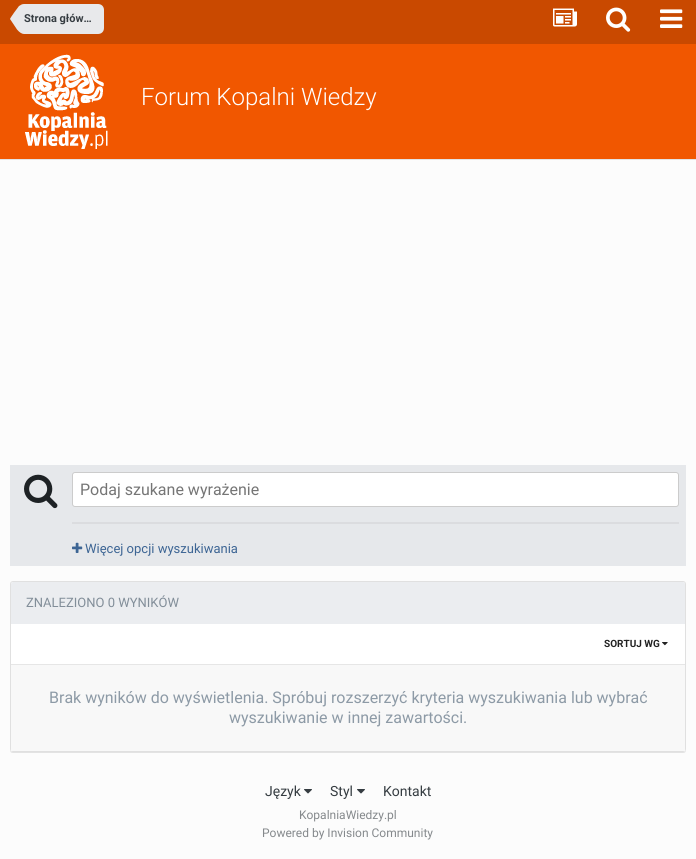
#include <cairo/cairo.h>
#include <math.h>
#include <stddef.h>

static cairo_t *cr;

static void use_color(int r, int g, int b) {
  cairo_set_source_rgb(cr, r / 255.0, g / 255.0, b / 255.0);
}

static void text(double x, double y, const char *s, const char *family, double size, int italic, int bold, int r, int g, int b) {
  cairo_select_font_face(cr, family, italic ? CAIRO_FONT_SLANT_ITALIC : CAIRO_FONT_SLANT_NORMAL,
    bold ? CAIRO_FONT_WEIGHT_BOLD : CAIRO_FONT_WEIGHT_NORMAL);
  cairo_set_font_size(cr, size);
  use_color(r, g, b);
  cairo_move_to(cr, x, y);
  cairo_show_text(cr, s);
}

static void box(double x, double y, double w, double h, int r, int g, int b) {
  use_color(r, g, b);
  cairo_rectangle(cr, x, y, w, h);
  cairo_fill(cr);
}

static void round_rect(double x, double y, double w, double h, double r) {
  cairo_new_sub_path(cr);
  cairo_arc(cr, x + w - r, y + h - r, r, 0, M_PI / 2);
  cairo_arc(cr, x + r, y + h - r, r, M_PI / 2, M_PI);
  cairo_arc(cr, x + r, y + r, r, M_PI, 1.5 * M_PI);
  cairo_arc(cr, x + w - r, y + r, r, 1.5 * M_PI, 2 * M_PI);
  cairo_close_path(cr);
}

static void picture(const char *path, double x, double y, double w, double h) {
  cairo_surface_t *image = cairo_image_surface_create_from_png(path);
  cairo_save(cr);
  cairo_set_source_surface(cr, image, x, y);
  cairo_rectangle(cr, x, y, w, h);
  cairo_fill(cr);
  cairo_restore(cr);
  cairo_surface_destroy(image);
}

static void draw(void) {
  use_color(252, 252, 252);
  cairo_paint(cr);
  box(0, 159, 696, 1, 227, 227, 227);
  box(0, 0, 696, 44, 201, 73, 0);
  use_color(232, 233, 235);
  cairo_new_path(cr);
  cairo_move_to(cr, 24, 4);
  cairo_line_to(cr, 98, 4);
  cairo_curve_to(cr, 101.5, 4, 104, 6.5, 104, 10);
  cairo_line_to(cr, 104, 28);
  cairo_curve_to(cr, 104, 31.5, 101.5, 34, 98, 34);
  cairo_line_to(cr, 24, 34);
  cairo_close_path(cr);
  cairo_fill(cr);
  cairo_new_path(cr);
  cairo_move_to(cr, 24, 19);
  cairo_line_to(cr, 24, 34);
  cairo_curve_to(cr, 22, 34, 19.5, 32.5, 17, 29.5);
  cairo_line_to(cr, 10, 19);
  cairo_close_path(cr);
  cairo_move_to(cr, 24, 19);
  cairo_line_to(cr, 10, 19);
  cairo_curve_to(cr, 10, 18, 18.5, 6.5, 19, 6);
  cairo_curve_to(cr, 20.5, 5, 22, 4, 24, 4);
  cairo_close_path(cr);
  cairo_fill(cr);
  picture("img_01.png", 553, 8, 24, 19);
  picture("img_02.png", 606, 7, 25, 25);
  picture("img_03.png", 660, 9, 23, 19);
  box(0, 44, 696, 115, 241, 87, 0);
  picture("img_04.png", 25, 54, 83, 95);
  box(10, 465, 676, 101, 230, 232, 235);
  picture("img_05.png", 24, 474, 34, 35);
  use_color(255, 255, 255);
  round_rect(72, 472, 607, 35, 3);
  cairo_fill(cr);
  round_rect(72.5, 472.5, 606, 34, 2.5);
  cairo_set_source_rgba(cr, 0, 0, 0, 0.2);
  cairo_set_line_width(cr, 1);
  cairo_stroke(cr);
  box(72, 522, 607, 2, 219, 220, 223);
  picture("img_06.png", 72, 542, 11, 11);
  use_color(227, 227, 227);
  cairo_new_path(cr);
  cairo_move_to(cr, 10, 749);
  cairo_line_to(cr, 10, 750);
  cairo_curve_to(cr, 10, 752, 11, 753, 13, 753);
  cairo_line_to(cr, 683, 753);
  cairo_curve_to(cr, 685, 753, 686, 752, 686, 750);
  cairo_line_to(cr, 686, 749);
  cairo_curve_to(cr, 686, 751, 685, 752, 683, 752);
  cairo_line_to(cr, 13, 752);
  cairo_curve_to(cr, 11, 752, 10, 751, 10, 749);
  cairo_close_path(cr);
  cairo_fill(cr);
  use_color(255, 255, 255);
  round_rect(10.5, 581.5, 675, 170, 2.5);
  cairo_fill_preserve(cr);
  use_color(224, 224, 224);
  cairo_stroke(cr);
  use_color(235, 237, 240);
  cairo_new_path(cr);
  cairo_move_to(cr, 13, 582);
  cairo_line_to(cr, 683, 582);
  cairo_curve_to(cr, 684, 582, 685, 583, 685, 584);
  cairo_line_to(cr, 685, 624);
  cairo_line_to(cr, 11, 624);
  cairo_line_to(cr, 11, 584);
  cairo_curve_to(cr, 11, 583, 12, 582, 13, 582);
  cairo_close_path(cr);
  cairo_fill(cr);
  box(11, 664, 674, 1, 230, 230, 230);
  picture("img_07.png", 662, 642, 6, 4);
  box(11, 665, 674, 86, 248, 248, 248);
  picture("img_08.png", 304, 789, 8, 5);
  picture("img_08.png", 357, 789, 8, 5);
  text(24, 22, "Strona głów…", "Roboto", 11, 0, 1, 53, 60, 65);
  text(141, 105, "Forum Kopalni Wiedzy", "Roboto Light", 24, 0, 0, 255, 255, 255);
  text(80, 495, "Podaj szukane wyrażenie", "Roboto", 16, 0, 0, 117, 117, 117);
  text(85, 553, "Więcej opcji wyszukiwania", "Roboto", 13, 0, 0, 61, 101, 148);
  text(26, 607, "ZNALEZIONO 0 WYNIKÓW", "Roboto", 13, 0, 0, 130, 142, 153);
  text(604, 647, "SORTUJ WG", "Roboto", 10, 0, 1, 34, 34, 34);
  text(49, 703, "Brak wyników do wyświetlenia. Spróbuj rozszerzyć kryteria wyszukiwania lub wybrać", "Roboto", 16, 0, 0, 141, 154, 166);
  text(229, 723, "wyszukiwanie w innej zawartości.", "Roboto", 16, 0, 0, 141, 154, 166);
  text(265, 796, "Język", "Roboto", 14, 0, 0, 53, 60, 65);
  text(330, 796, "Styl", "Roboto", 14, 0, 0, 53, 60, 65);
  text(383, 796, "Kontakt", "Roboto", 14, 0, 0, 53, 60, 65);
  text(299, 819, "KopalniaWiedzy.pl", "Roboto", 12, 0, 0, 133, 137, 140);
  text(262, 837, "Powered by Invision Community", "Roboto", 12, 0, 0, 133, 137, 140);
}

int main(void) {
  cairo_surface_t *surface = cairo_image_surface_create(CAIRO_FORMAT_RGB24, 696, 859);
  cr = cairo_create(surface);
  cairo_font_options_t *options = cairo_font_options_create();
  cairo_font_options_set_hint_metrics(options, CAIRO_HINT_METRICS_OFF);
  cairo_font_options_set_hint_style(options, CAIRO_HINT_STYLE_NONE);
  cairo_set_font_options(cr, options);
  cairo_set_miter_limit(cr, 4);
  draw();
  cairo_surface_write_to_png(surface, "out.png");
  cairo_font_options_destroy(options);
  cairo_destroy(cr);
  cairo_surface_destroy(surface);
  return 0;
}
